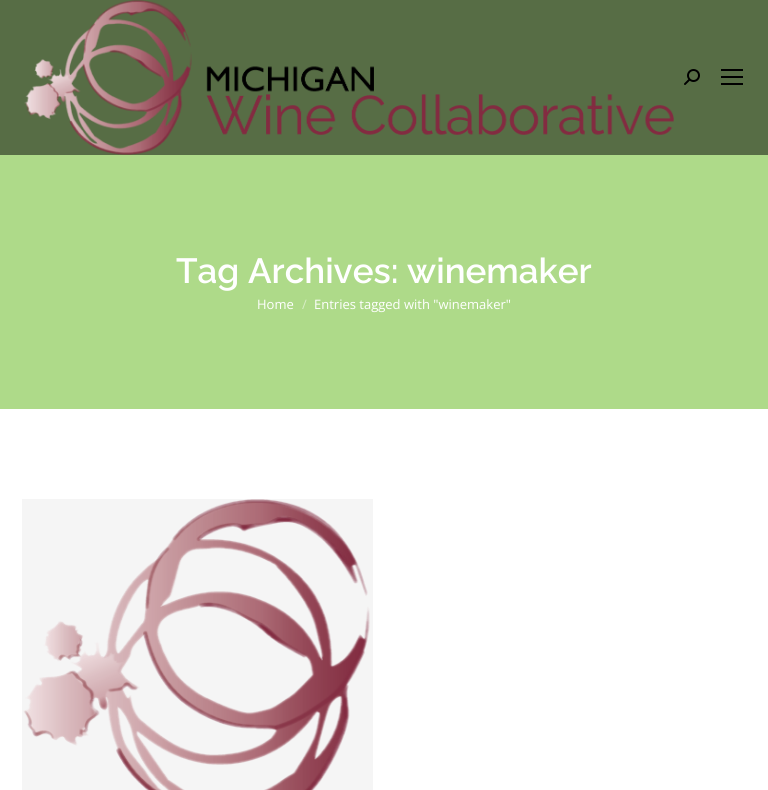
#include <cairo/cairo.h>
#include <math.h>
#include <stddef.h>

static cairo_t *cr;

static void use_color(int r, int g, int b) {
  cairo_set_source_rgb(cr, r / 255.0, g / 255.0, b / 255.0);
}

static void text(double x, double y, const char *s, const char *family, double size, int italic, int bold, int r, int g, int b) {
  cairo_select_font_face(cr, family, italic ? CAIRO_FONT_SLANT_ITALIC : CAIRO_FONT_SLANT_NORMAL,
    bold ? CAIRO_FONT_WEIGHT_BOLD : CAIRO_FONT_WEIGHT_NORMAL);
  cairo_set_font_size(cr, size);
  use_color(r, g, b);
  cairo_move_to(cr, x, y);
  cairo_show_text(cr, s);
}

static void box(double x, double y, double w, double h, int r, int g, int b) {
  use_color(r, g, b);
  cairo_rectangle(cr, x, y, w, h);
  cairo_fill(cr);
}

static void picture(const char *path, double x, double y, double w, double h) {
  cairo_surface_t *image = cairo_image_surface_create_from_png(path);
  cairo_save(cr);
  cairo_set_source_surface(cr, image, x, y);
  cairo_rectangle(cr, x, y, w, h);
  cairo_fill(cr);
  cairo_restore(cr);
  cairo_surface_destroy(image);
}

static void draw(void) {
  use_color(255, 255, 255);
  cairo_paint(cr);
  box(0, 0, 768, 155, 87, 109, 69);
  picture("img_01.png", 24, 0, 650, 155);
  picture("img_02.png", 684, 69, 16, 16);
  box(721, 69, 22, 2, 0, 0, 0);
  box(721, 76, 22, 2, 0, 0, 0);
  box(721, 83, 22, 2, 0, 0, 0);
  box(0, 155, 768, 254, 174, 218, 137);
  box(22, 499, 351, 291, 245, 245, 245);
  picture("img_03.png", 23, 499, 347, 291);
  text(176, 283, "Tag Archives: winemaker", "Raleway SemiBold", 35, 0, 0, 255, 255, 255);
  text(257, 309, "Home", "Open Sans", 13, 0, 0, 255, 255, 255);
  text(302, 309, "/", "Open Sans", 13, 0, 0, 215, 237, 196);
  text(314, 309, "Entries tagged with \"winemaker\"", "Open Sans", 13, 0, 0, 255, 255, 255);
}

int main(void) {
  cairo_surface_t *surface = cairo_image_surface_create(CAIRO_FORMAT_RGB24, 768, 790);
  cr = cairo_create(surface);
  cairo_font_options_t *options = cairo_font_options_create();
  cairo_font_options_set_hint_metrics(options, CAIRO_HINT_METRICS_OFF);
  cairo_font_options_set_hint_style(options, CAIRO_HINT_STYLE_NONE);
  cairo_set_font_options(cr, options);
  cairo_set_miter_limit(cr, 4);
  draw();
  cairo_surface_write_to_png(surface, "out.png");
  cairo_font_options_destroy(options);
  cairo_destroy(cr);
  cairo_surface_destroy(surface);
  return 0;
}
